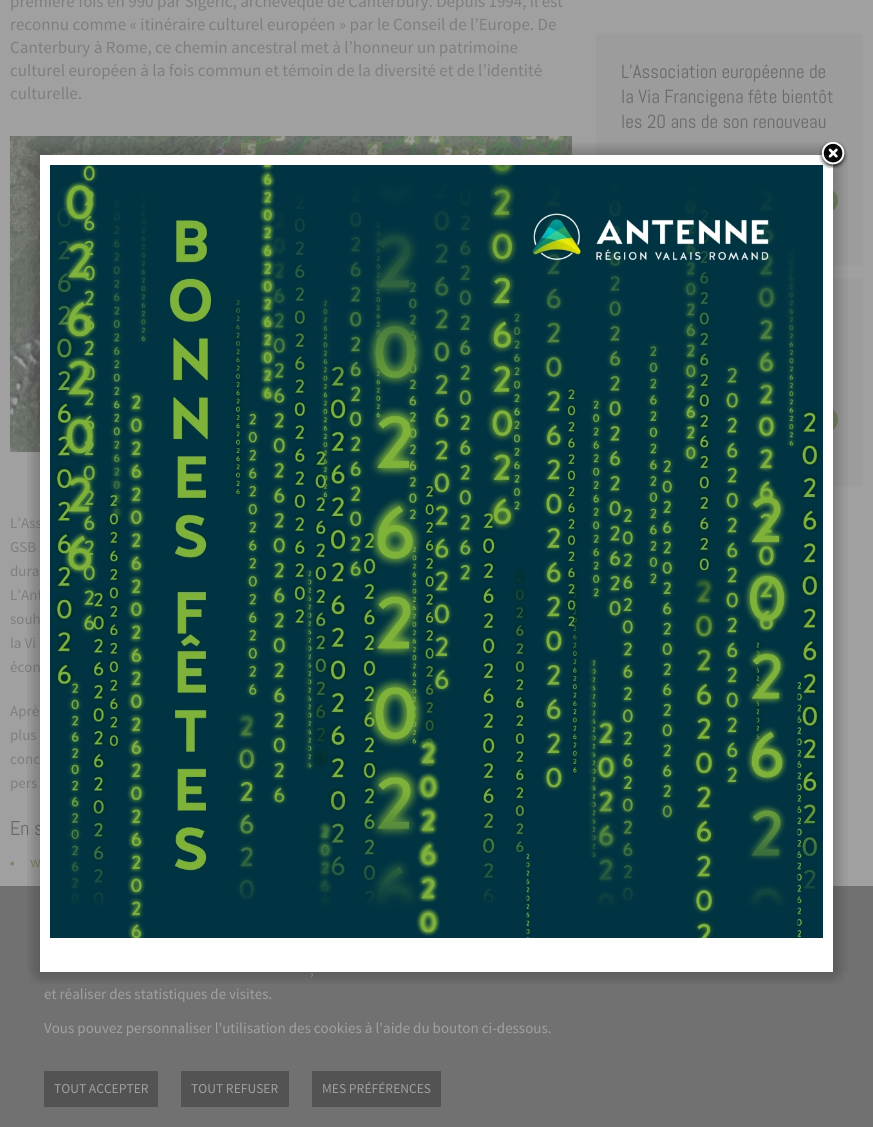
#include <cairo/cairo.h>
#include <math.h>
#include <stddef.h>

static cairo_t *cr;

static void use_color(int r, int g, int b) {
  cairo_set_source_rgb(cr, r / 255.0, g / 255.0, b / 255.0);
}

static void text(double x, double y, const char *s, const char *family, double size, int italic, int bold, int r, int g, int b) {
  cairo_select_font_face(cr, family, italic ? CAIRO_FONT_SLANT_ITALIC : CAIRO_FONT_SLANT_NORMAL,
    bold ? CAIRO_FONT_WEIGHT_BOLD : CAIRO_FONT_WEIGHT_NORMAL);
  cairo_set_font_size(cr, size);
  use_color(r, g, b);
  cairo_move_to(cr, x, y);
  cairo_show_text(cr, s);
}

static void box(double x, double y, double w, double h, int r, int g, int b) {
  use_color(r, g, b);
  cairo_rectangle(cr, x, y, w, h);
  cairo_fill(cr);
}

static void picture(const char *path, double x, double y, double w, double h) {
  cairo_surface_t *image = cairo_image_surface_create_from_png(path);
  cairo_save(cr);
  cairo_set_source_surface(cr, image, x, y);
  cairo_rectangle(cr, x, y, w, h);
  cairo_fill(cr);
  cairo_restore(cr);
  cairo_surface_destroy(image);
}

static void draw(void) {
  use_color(160, 160, 160);
  cairo_paint(cr);
  picture("img_01.png", 10, 136, 562, 316);
  picture("img_02.png", 10, 861, 4, 5);
  box(596, 34, 267, 232, 156, 156, 156);
  picture("img_03.png", 833, 190, 5, 21);
  box(833, 278, 30, 208, 156, 156, 156);
  picture("img_03.png", 833, 409, 5, 21);
  picture("img_04.png", 40, 142, 793, 13);
  picture("img_06.png", 29, 144, 11, 11);
  picture("img_07.png", 833, 142, 12, 13);
  box(0, 886, 873, 241, 114, 113, 113);
  picture("img_10.png", 833, 155, 15, 817);
  picture("img_11.png", 29, 972, 11, 12);
  picture("img_13.png", 833, 972, 11, 12);
  box(44, 1071, 114, 36, 83, 83, 83);
  box(181, 1071, 108, 36, 83, 83, 83);
  box(312, 1071, 129, 36, 83, 83, 83);
  text(10, 7, "première fois en 990 par Sigéric, archevêque de Canterbury. Depuis 1994, il est", "Source Sans Pro", 17, 0, 0, 126, 126, 126);
  text(10, 30, "reconnu comme « itinéraire culturel européen » par le Conseil de l’Europe. De", "Source Sans Pro", 17, 0, 0, 126, 126, 126);
  text(10, 53, "Canterbury à Rome, ce chemin ancestral met à l’honneur un patrimoine", "Source Sans Pro", 17, 0, 0, 126, 126, 126);
  text(10, 76, "culturel européen à la fois commun et témoin de la diversité et de l’identité", "Source Sans Pro", 17, 0, 0, 126, 126, 126);
  text(10, 99, "culturelle.", "Source Sans Pro", 17, 0, 0, 126, 126, 126);
  text(10, 528, "L’Ass", "Source Sans Pro", 15, 0, 0, 126, 126, 126);
  text(10, 552, "GSB", "Source Sans Pro", 15, 0, 0, 126, 126, 126);
  text(10, 576, "dura", "Source Sans Pro", 15, 0, 0, 126, 126, 126);
  text(10, 600, "L’Ant", "Source Sans Pro", 15, 0, 0, 126, 126, 126);
  text(10, 624, "souh", "Source Sans Pro", 15, 0, 0, 126, 126, 126);
  text(10, 648, "la Vi", "Source Sans Pro", 15, 0, 0, 126, 126, 126);
  text(10, 672, "écon", "Source Sans Pro", 15, 0, 0, 126, 126, 126);
  text(10, 716, "Aprè", "Source Sans Pro", 15, 0, 0, 126, 126, 126);
  text(10, 740, "plus", "Source Sans Pro", 15, 0, 0, 126, 126, 126);
  text(10, 764, "conc", "Source Sans Pro", 15, 0, 0, 126, 126, 126);
  text(10, 788, "pers", "Source Sans Pro", 15, 0, 0, 126, 126, 126);
  text(10, 835, "En s", "Abel", 20, 0, 0, 105, 105, 105);
  text(30, 867, "w", "Source Sans Pro", 15, 0, 0, 120, 137, 104);
  text(621, 78, "L'Association européenne de", "Abel", 19, 0, 0, 105, 105, 105);
  text(621, 103, "la Via Francigena fête bientôt", "Abel", 19, 0, 0, 105, 105, 105);
  text(621, 128, "les 20 ans de son renouveau", "Abel", 19, 0, 0, 105, 105, 105);
  box(40, 155, 793, 817, 255, 255, 255);
  picture("img_08.png", 27, 155, 13, 817);
  picture("img_09.png", 50, 165, 773, 773);
  picture("img_05.png", 819, 141, 29, 28);
  text(310, 975, ",", "Source Sans Pro", 15, 0, 0, 160, 160, 160);
  picture("img_12.png", 40, 972, 793, 12);
  text(44, 999, "et réaliser des statistiques de visites.", "Source Sans Pro", 15, 0, 0, 160, 160, 160);
  text(44, 1033, "Vous pouvez personnaliser l'utilisation des cookies à l'aide du bouton ci-dessous.", "Source Sans Pro", 15, 0, 0, 160, 160, 160);
  text(54, 1093, "TOUT ACCEPTER", "Source Sans Pro", 13.5, 0, 0, 160, 160, 160);
  text(191, 1093, "TOUT REFUSER", "Source Sans Pro", 13.5, 0, 0, 160, 160, 160);
  text(322, 1093, "MES PRÉFÉRENCES", "Source Sans Pro", 13.5, 0, 0, 160, 160, 160);
}

int main(void) {
  cairo_surface_t *surface = cairo_image_surface_create(CAIRO_FORMAT_RGB24, 873, 1127);
  cr = cairo_create(surface);
  cairo_font_options_t *options = cairo_font_options_create();
  cairo_font_options_set_hint_metrics(options, CAIRO_HINT_METRICS_OFF);
  cairo_font_options_set_hint_style(options, CAIRO_HINT_STYLE_NONE);
  cairo_set_font_options(cr, options);
  cairo_set_miter_limit(cr, 4);
  draw();
  cairo_surface_write_to_png(surface, "out.png");
  cairo_font_options_destroy(options);
  cairo_destroy(cr);
  cairo_surface_destroy(surface);
  return 0;
}
